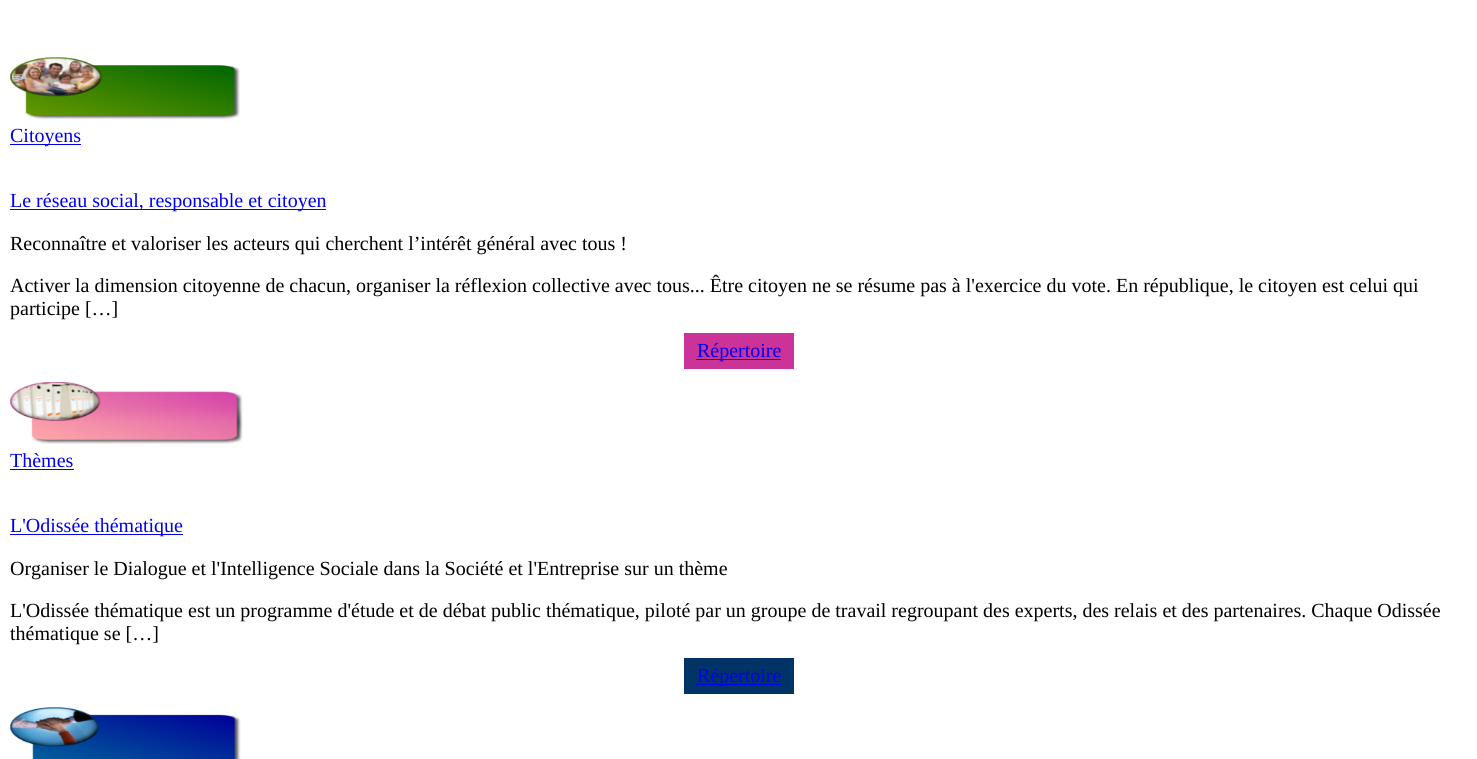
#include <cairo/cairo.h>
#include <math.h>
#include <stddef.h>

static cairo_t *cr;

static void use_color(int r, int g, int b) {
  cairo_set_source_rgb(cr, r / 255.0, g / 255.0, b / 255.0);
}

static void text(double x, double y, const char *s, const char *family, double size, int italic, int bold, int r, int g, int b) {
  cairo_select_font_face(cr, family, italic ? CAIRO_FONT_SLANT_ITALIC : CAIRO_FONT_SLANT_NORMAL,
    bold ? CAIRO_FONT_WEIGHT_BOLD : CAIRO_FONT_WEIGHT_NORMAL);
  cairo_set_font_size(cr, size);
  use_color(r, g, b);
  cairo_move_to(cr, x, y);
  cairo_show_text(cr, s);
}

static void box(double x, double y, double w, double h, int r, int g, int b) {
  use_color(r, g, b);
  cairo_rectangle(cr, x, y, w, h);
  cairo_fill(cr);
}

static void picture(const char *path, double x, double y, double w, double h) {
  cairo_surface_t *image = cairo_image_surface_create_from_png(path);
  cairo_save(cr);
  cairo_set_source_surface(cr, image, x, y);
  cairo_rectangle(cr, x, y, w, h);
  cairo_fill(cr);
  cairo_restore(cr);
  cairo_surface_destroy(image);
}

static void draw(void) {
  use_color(255, 255, 255);
  cairo_paint(cr);
  picture("img_01.png", 10, 57, 230, 63);
  box(10, 144, 71, 1, 0, 0, 238);
  box(10, 209, 316, 1, 0, 0, 238);
  box(684, 333, 110, 36, 204, 51, 153);
  box(696, 359, 85, 1, 0, 0, 238);
  picture("img_02.png", 10, 382, 233, 62);
  box(10, 469, 64, 1, 0, 0, 238);
  box(10, 534, 173, 1, 0, 0, 238);
  box(684, 658, 110, 36, 0, 51, 102);
  box(696, 684, 85, 1, 0, 0, 238);
  picture("img_03.png", 10, 707, 231, 52);
  text(10, 142, "Citoyens", "Liberation Serif", 20, 0, 0, 0, 0, 238);
  text(10, 207, "Le réseau social, responsable et citoyen", "Liberation Serif", 20, 0, 0, 0, 0, 238);
  text(10, 250, "Reconnaître et valoriser les acteurs qui cherchent l’intérêt général avec tous !", "Liberation Serif", 20, 0, 0, 0, 0, 0);
  text(10, 292, "Activer la dimension citoyenne de chacun, organiser la réflexion collective avec tous... Être citoyen ne se résume pas à l'exercice du vote. En république, le citoyen est celui qui", "Liberation Serif", 20, 0, 0, 0, 0, 0);
  text(10, 315, "participe […]", "Liberation Serif", 20, 0, 0, 0, 0, 0);
  text(697, 357, "Répertoire", "Liberation Serif", 20, 0, 0, 0, 0, 238);
  text(10, 467, "Thèmes", "Liberation Serif", 20, 0, 0, 0, 0, 238);
  text(10, 532, "L'Odissée thématique", "Liberation Serif", 20, 0, 0, 0, 0, 238);
  text(10, 575, "Organiser le Dialogue et l'Intelligence Sociale dans la Société et l'Entreprise sur un thème", "Liberation Serif", 20, 0, 0, 0, 0, 0);
  text(10, 617, "L'Odissée thématique est un programme d'étude et de débat public thématique, piloté par un groupe de travail regroupant des experts, des relais et des partenaires. Chaque Odissée", "Liberation Serif", 20, 0, 0, 0, 0, 0);
  text(10, 640, "thématique se […]", "Liberation Serif", 20, 0, 0, 0, 0, 0);
  text(697, 682, "Répertoire", "Liberation Serif", 20, 0, 0, 0, 0, 238);
}

int main(void) {
  cairo_surface_t *surface = cairo_image_surface_create(CAIRO_FORMAT_RGB24, 1477, 759);
  cr = cairo_create(surface);
  cairo_font_options_t *options = cairo_font_options_create();
  cairo_font_options_set_hint_metrics(options, CAIRO_HINT_METRICS_OFF);
  cairo_font_options_set_hint_style(options, CAIRO_HINT_STYLE_NONE);
  cairo_set_font_options(cr, options);
  cairo_set_miter_limit(cr, 4);
  draw();
  cairo_surface_write_to_png(surface, "out.png");
  cairo_font_options_destroy(options);
  cairo_destroy(cr);
  cairo_surface_destroy(surface);
  return 0;
}
